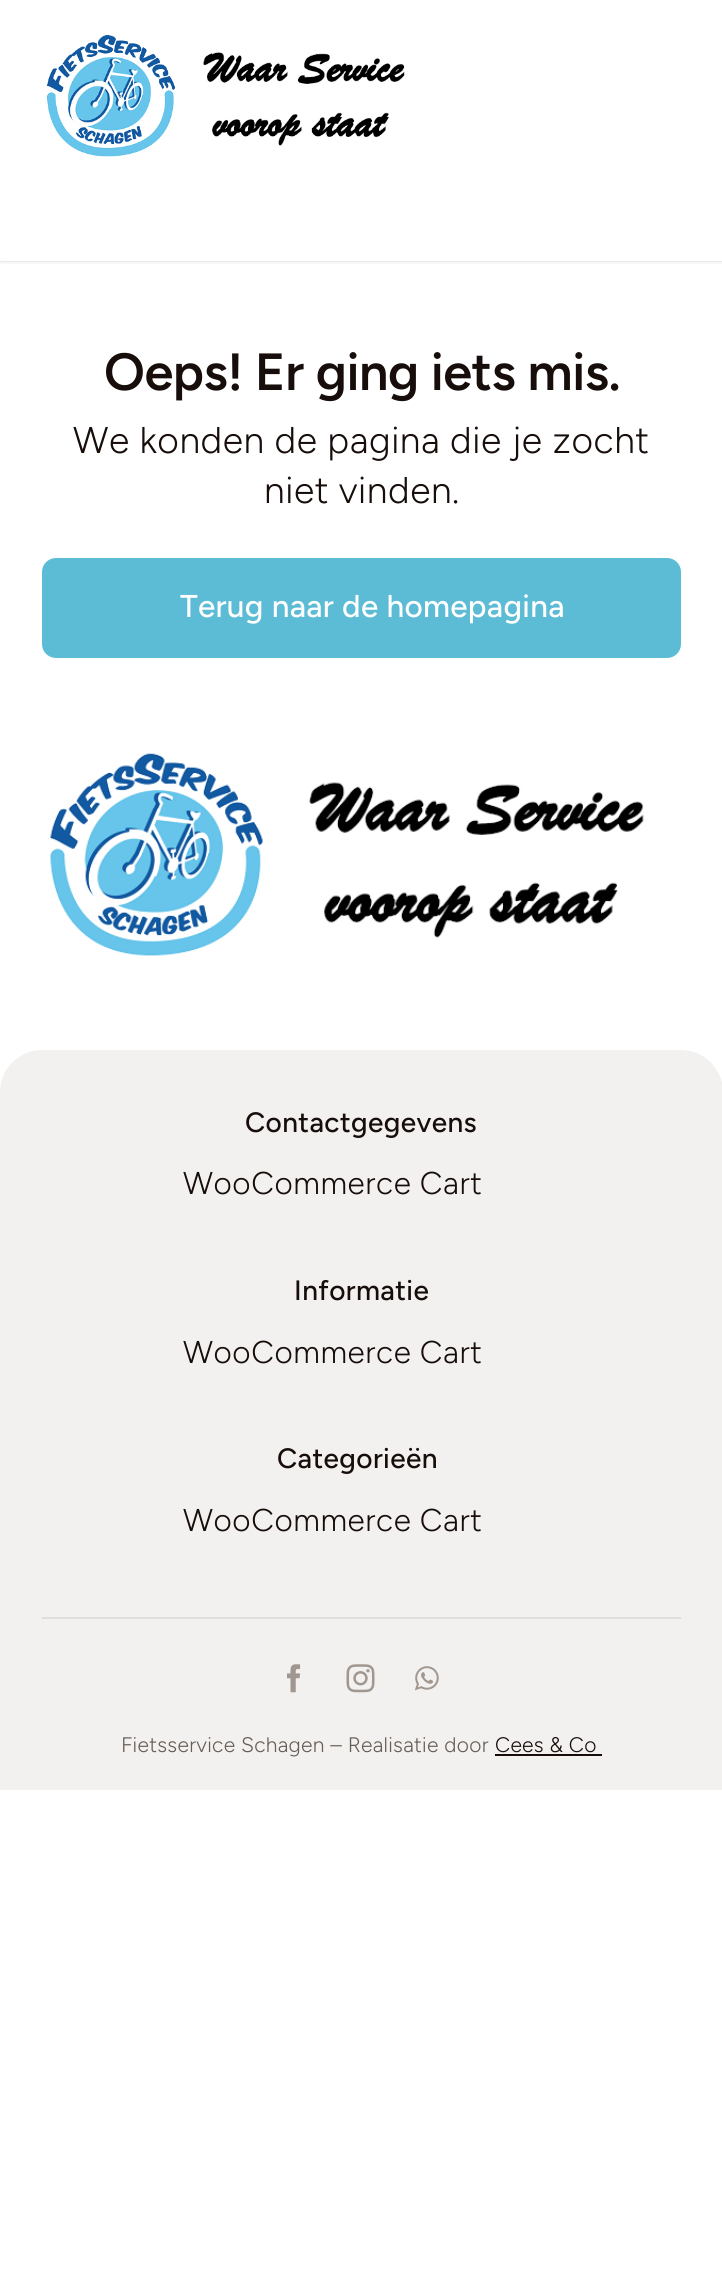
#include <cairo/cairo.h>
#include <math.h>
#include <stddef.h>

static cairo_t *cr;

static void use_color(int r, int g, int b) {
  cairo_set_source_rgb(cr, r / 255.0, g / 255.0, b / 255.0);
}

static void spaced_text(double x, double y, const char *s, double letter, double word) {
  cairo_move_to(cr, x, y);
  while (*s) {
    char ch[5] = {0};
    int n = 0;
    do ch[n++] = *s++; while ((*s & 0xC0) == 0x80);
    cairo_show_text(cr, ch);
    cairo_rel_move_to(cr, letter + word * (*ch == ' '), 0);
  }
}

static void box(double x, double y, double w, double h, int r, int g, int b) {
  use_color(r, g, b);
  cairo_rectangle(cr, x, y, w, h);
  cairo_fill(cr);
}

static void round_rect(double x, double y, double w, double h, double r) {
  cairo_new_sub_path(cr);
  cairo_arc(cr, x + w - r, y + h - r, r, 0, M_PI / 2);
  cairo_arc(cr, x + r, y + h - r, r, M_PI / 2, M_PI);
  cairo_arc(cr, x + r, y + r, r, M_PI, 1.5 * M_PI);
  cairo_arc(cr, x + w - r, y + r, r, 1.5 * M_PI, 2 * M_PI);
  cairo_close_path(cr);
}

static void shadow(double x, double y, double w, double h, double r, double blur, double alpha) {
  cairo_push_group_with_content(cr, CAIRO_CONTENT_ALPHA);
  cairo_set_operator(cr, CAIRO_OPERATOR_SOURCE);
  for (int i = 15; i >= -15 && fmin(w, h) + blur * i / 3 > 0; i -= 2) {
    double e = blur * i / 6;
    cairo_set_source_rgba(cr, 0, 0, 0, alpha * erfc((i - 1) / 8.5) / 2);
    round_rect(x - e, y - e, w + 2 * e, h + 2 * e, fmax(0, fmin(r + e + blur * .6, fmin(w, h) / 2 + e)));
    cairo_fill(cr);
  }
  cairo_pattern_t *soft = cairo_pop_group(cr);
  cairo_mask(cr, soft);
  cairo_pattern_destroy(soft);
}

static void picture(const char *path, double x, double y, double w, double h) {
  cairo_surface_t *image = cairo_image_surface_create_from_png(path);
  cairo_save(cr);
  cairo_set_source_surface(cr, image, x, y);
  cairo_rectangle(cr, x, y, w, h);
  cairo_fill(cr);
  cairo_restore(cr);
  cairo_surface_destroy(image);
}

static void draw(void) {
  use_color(255, 255, 255);
  cairo_paint(cr);
  use_color(0, 0, 0);
  shadow(0, 0, 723, 261, 0, 2, 0.2);
  box(0, 0, 722, 261, 255, 255, 255);
  picture("img_01.png", 47, 35, 358, 122);
  use_color(92, 188, 214);
  round_rect(42, 558, 639, 100, 14);
  cairo_fill(cr);
  picture("img_02.png", 50, 753, 594, 203);
  use_color(243, 241, 239);
  cairo_new_path(cr);
  cairo_move_to(cr, 42, 1050);
  cairo_line_to(cr, 681, 1050);
  cairo_curve_to(cr, 704, 1050, 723, 1069, 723, 1092);
  cairo_line_to(cr, 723, 1610);
  cairo_line_to(cr, 0, 1610);
  cairo_line_to(cr, 0, 1092);
  cairo_curve_to(cr, 0, 1069, 19, 1050, 42, 1050);
  cairo_close_path(cr);
  cairo_fill(cr);
  box(0, 1610, 722, 180, 243, 241, 239);
  box(42, 1617, 639, 2, 222, 222, 222);
  picture("img_03.png", 287, 1664, 14, 29);
  picture("img_04.png", 346, 1664, 29, 29);
  picture("img_05.png", 414, 1666, 25, 25);
  box(495, 1754, 107, 2, 23, 14, 11);
  cairo_select_font_face(cr, "Figtree SemiBold", CAIRO_FONT_SLANT_NORMAL, CAIRO_FONT_WEIGHT_NORMAL);
  cairo_set_font_size(cr, 52.25);
  spaced_text(104, 390, "Oeps! Er ging iets mis.", -0.5, 0);
  cairo_select_font_face(cr, "Figtree Light", CAIRO_FONT_SLANT_NORMAL, CAIRO_FONT_WEIGHT_NORMAL);
  cairo_set_font_size(cr, 37.2);
  spaced_text(73, 453, "We konden de pagina die je zocht", 0.55, 0);
  spaced_text(264, 503, "niet vinden.", 0.55, 0);
  cairo_select_font_face(cr, "Figtree Medium", CAIRO_FONT_SLANT_NORMAL, CAIRO_FONT_WEIGHT_NORMAL);
  cairo_set_font_size(cr, 31.5);
  use_color(255, 255, 255);
  spaced_text(180, 617, "Terug naar de homepagina", 0.3, 0);
  cairo_set_font_size(cr, 28);
  use_color(23, 14, 11);
  spaced_text(245, 1132, "Contactgegevens", 0.4, 0);
  cairo_select_font_face(cr, "Figtree Light", CAIRO_FONT_SLANT_NORMAL, CAIRO_FONT_WEIGHT_NORMAL);
  cairo_set_font_size(cr, 31.5);
  spaced_text(183, 1194, "WooCommerce Cart", 0.6, 0);
  cairo_select_font_face(cr, "Figtree Medium", CAIRO_FONT_SLANT_NORMAL, CAIRO_FONT_WEIGHT_NORMAL);
  cairo_set_font_size(cr, 28);
  spaced_text(294, 1300, "Informatie", 0.4, 0);
  cairo_select_font_face(cr, "Figtree Light", CAIRO_FONT_SLANT_NORMAL, CAIRO_FONT_WEIGHT_NORMAL);
  cairo_set_font_size(cr, 31.5);
  spaced_text(183, 1363, "WooCommerce Cart", 0.6, 0);
  cairo_select_font_face(cr, "Figtree Medium", CAIRO_FONT_SLANT_NORMAL, CAIRO_FONT_WEIGHT_NORMAL);
  cairo_set_font_size(cr, 28);
  spaced_text(277, 1468, "Categorieën", 0.4, 0);
  cairo_select_font_face(cr, "Figtree Light", CAIRO_FONT_SLANT_NORMAL, CAIRO_FONT_WEIGHT_NORMAL);
  cairo_set_font_size(cr, 31.5);
  spaced_text(183, 1531, "WooCommerce Cart", 0.6, 0);
  cairo_set_font_size(cr, 21);
  use_color(102, 93, 86);
  spaced_text(121, 1752, "Fietsservice Schagen – Realisatie door", 0.3, 0);
  use_color(23, 14, 11);
  spaced_text(495, 1752, "Cees & Co", 0.3, 0);
}

int main(void) {
  cairo_surface_t *surface = cairo_image_surface_create(CAIRO_FORMAT_RGB24, 722, 2293);
  cr = cairo_create(surface);
  cairo_font_options_t *options = cairo_font_options_create();
  cairo_font_options_set_hint_metrics(options, CAIRO_HINT_METRICS_OFF);
  cairo_font_options_set_hint_style(options, CAIRO_HINT_STYLE_NONE);
  cairo_set_font_options(cr, options);
  cairo_set_miter_limit(cr, 4);
  draw();
  cairo_surface_write_to_png(surface, "out.png");
  cairo_font_options_destroy(options);
  cairo_destroy(cr);
  cairo_surface_destroy(surface);
  return 0;
}
